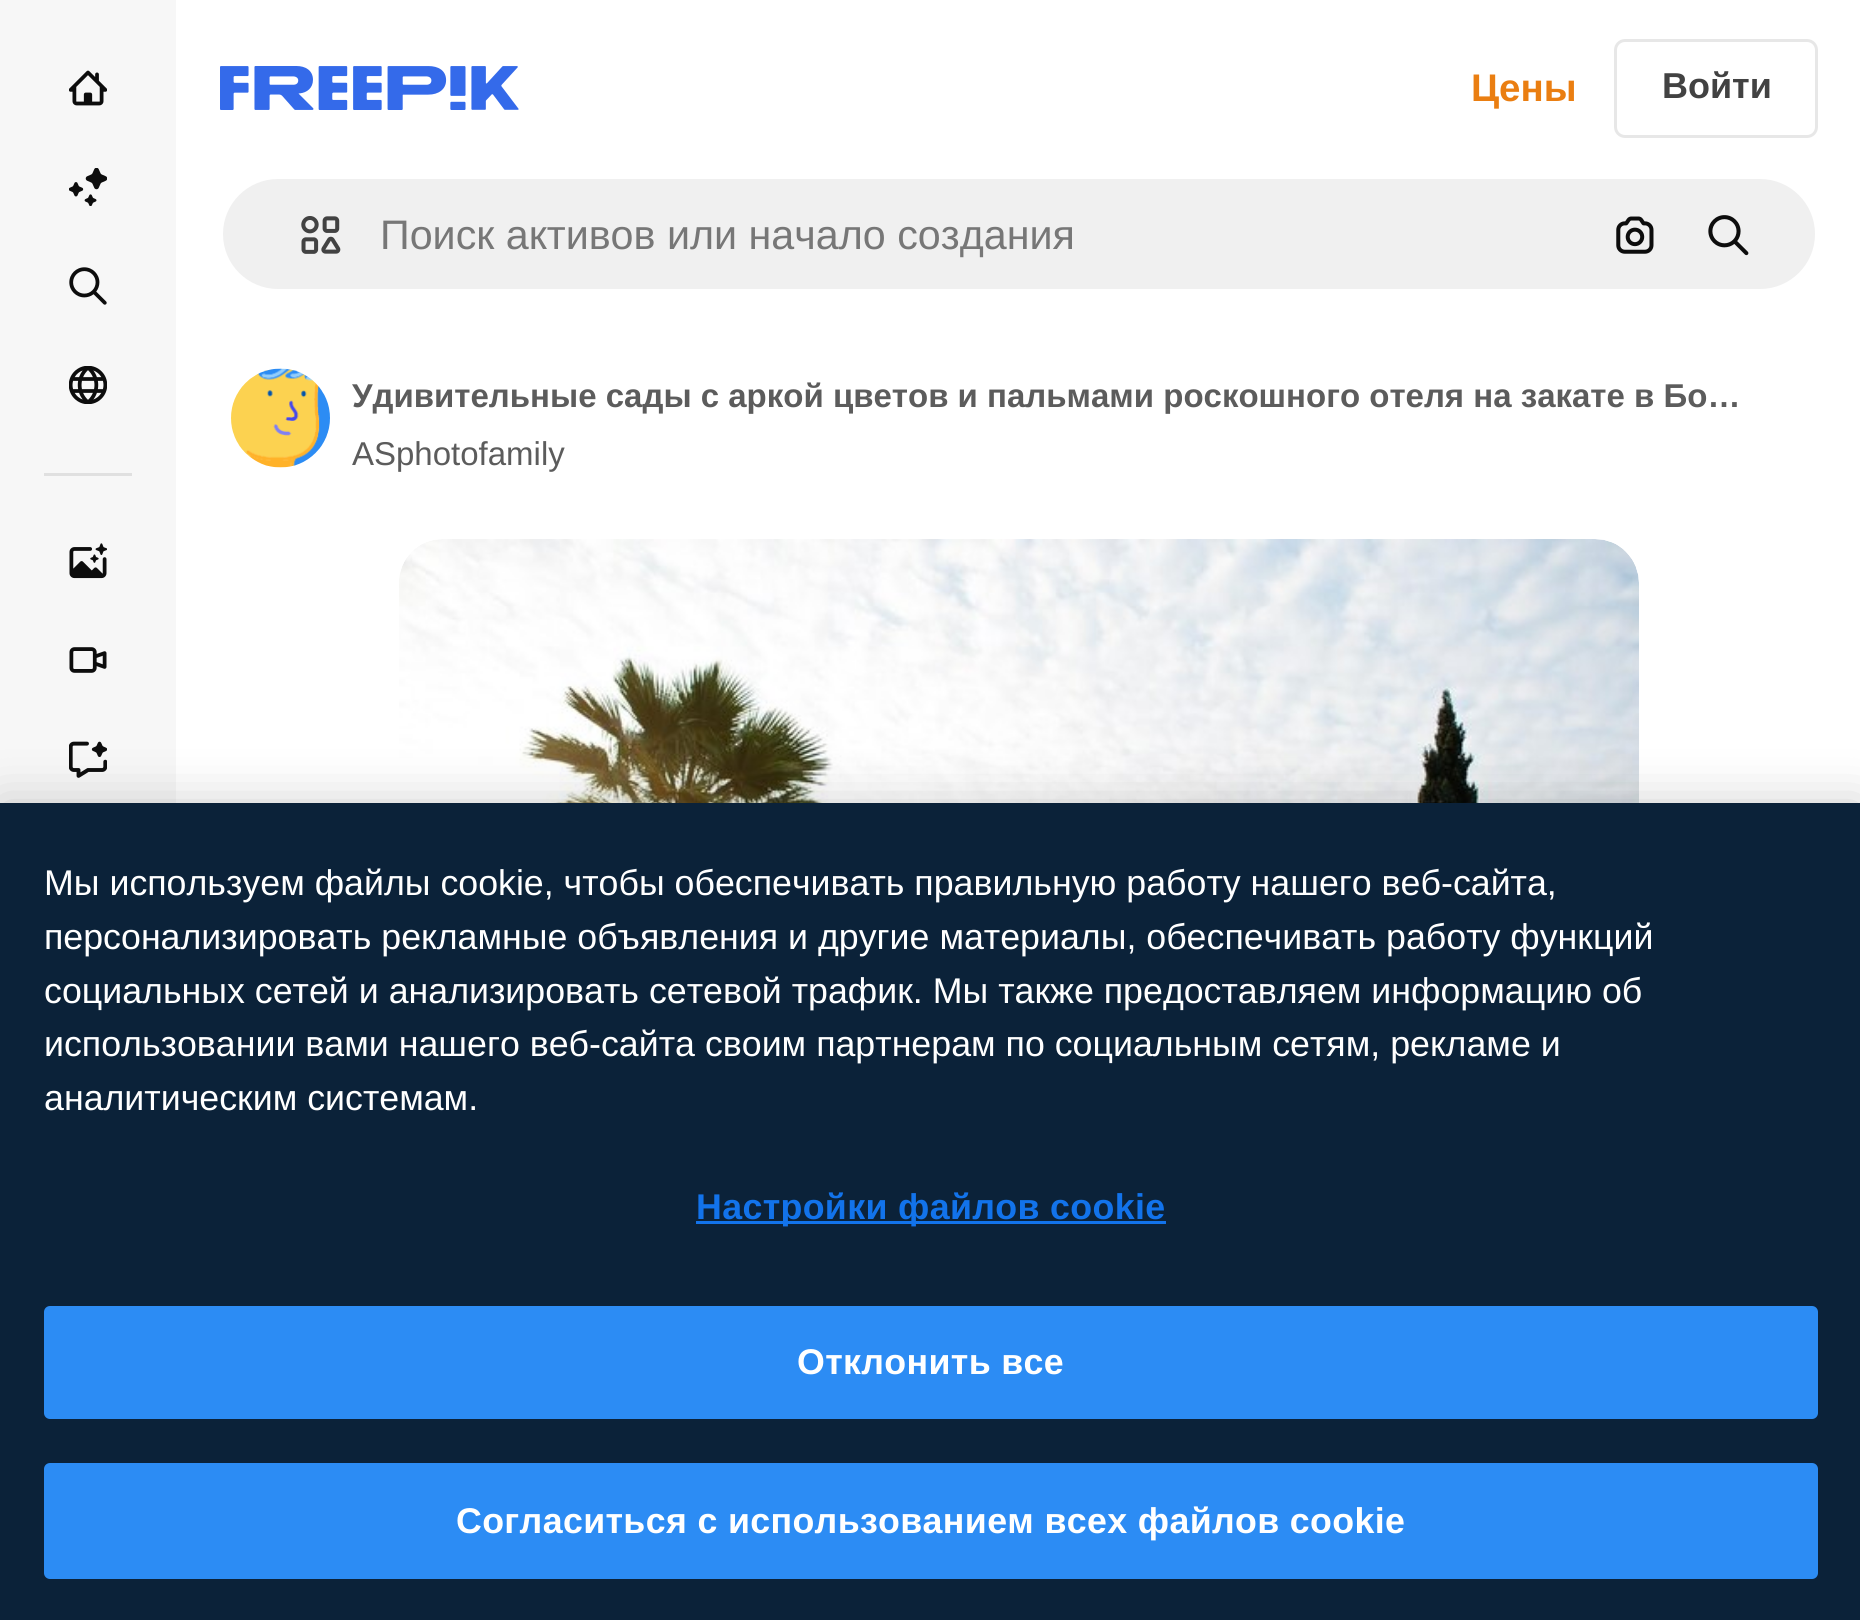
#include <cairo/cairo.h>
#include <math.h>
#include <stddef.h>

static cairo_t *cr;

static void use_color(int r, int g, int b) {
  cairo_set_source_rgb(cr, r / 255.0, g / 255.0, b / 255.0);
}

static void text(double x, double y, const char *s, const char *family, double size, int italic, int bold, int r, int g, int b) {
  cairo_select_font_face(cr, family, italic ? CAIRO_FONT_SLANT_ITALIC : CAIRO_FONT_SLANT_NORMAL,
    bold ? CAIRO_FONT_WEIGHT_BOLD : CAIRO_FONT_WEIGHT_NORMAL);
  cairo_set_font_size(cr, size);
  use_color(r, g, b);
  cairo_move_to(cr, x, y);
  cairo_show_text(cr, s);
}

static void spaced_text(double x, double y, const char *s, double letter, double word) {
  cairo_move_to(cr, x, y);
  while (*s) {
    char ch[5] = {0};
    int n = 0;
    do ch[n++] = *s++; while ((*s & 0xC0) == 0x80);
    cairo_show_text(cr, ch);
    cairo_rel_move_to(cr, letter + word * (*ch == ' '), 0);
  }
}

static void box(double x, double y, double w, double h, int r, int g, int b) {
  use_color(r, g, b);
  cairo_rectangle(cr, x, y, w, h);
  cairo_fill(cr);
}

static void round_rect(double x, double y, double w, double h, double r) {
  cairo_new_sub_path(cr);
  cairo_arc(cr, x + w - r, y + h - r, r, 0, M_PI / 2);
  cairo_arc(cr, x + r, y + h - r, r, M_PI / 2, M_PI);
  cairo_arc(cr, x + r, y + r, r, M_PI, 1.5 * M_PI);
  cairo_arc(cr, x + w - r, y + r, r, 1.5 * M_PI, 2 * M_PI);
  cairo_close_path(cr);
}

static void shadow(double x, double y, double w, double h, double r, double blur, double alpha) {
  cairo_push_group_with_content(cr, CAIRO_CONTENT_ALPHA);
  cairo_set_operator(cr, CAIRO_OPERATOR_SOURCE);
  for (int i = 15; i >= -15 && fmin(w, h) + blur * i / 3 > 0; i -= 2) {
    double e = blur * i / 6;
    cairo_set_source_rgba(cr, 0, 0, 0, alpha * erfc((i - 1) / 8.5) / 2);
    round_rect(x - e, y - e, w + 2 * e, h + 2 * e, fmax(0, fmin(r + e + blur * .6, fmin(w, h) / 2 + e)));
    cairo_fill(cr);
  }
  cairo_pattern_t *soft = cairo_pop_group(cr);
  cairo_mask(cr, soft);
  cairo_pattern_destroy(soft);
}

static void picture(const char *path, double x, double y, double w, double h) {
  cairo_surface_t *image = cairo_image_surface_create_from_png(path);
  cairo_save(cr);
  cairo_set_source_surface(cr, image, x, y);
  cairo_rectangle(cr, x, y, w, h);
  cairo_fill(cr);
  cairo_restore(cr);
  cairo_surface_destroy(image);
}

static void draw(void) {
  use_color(255, 255, 255);
  cairo_paint(cr);
  box(0, 0, 176, 803, 247, 247, 247);
  picture("img_01.png", 69, 70, 38, 36);
  picture("img_02.png", 69, 168, 38, 38);
  picture("img_03.png", 69, 267, 38, 38);
  picture("img_04.png", 69, 366, 38, 38);
  box(44, 473, 88, 3, 224, 224, 224);
  picture("img_05.png", 69, 543, 38, 36);
  picture("img_06.png", 69, 647, 38, 26);
  picture("img_07.png", 69, 741, 38, 37);
  picture("img_08.png", 220, 66, 299, 44);
  round_rect(1615.5, 40.5, 201, 96, 9.5);
  use_color(231, 231, 231);
  cairo_set_line_width(cr, 3);
  cairo_stroke(cr);
  use_color(240, 240, 240);
  round_rect(221.5, 177.5, 1595, 113, 56.5);
  cairo_fill_preserve(cr);
  use_color(255, 255, 255);
  cairo_stroke(cr);
  picture("img_09.png", 301, 216, 40, 38);
  picture("img_10.png", 1616, 216, 38, 38);
  picture("img_11.png", 1708, 215, 41, 41);
  picture("img_12.png", 231, 368, 99, 100);
  picture("img_13.png", 399, 539, 1240, 264);
  use_color(0, 0, 0);
  shadow(0, 803, 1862, 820, 0, 25, 0.2);
  box(0, 803, 1860, 817, 11, 34, 57);
  box(696, 1221, 470, 3, 18, 115, 235);
  use_color(44, 140, 244);
  round_rect(45.5, 1307.5, 1771, 110, 4.5);
  cairo_fill_preserve(cr);
  cairo_stroke(cr);
  round_rect(45.5, 1464.5, 1771, 113, 4.5);
  cairo_fill_preserve(cr);
  cairo_stroke(cr);
  text(1471, 101, "Цены", "Liberation Sans", 38.5, 0, 1, 234, 126, 17);
  text(1662, 98, "Войти", "Liberation Sans", 36, 0, 1, 66, 66, 66);
  text(380, 249, "Поиск активов или начало создания", "Liberation Sans", 41.25, 0, 0, 119, 119, 119);
  text(352, 407, "Удивительные сады с аркой цветов и пальмами роскошного отеля на закате в Бо…", "Liberation Sans", 33, 0, 1, 92, 92, 92);
  text(352, 465, "ASphotofamily", "Liberation Sans", 33, 0, 0, 92, 92, 92);
  text(44, 895, "Мы используем файлы cookie, чтобы обеспечивать правильную работу нашего веб-сайта,", "Liberation Sans", 35.75, 0, 0, 255, 255, 255);
  text(44, 949, "персонализировать рекламные объявления и другие материалы, обеспечивать работу функций", "Liberation Sans", 35.75, 0, 0, 255, 255, 255);
  text(44, 1003, "социальных сетей и анализировать сетевой трафик. Мы также предоставляем информацию об", "Liberation Sans", 35.75, 0, 0, 255, 255, 255);
  text(44, 1056, "использовании вами нашего веб-сайта своим партнерам по социальным сетям, рекламе и", "Liberation Sans", 35.75, 0, 0, 255, 255, 255);
  text(44, 1110, "аналитическим системам.", "Liberation Sans", 35.75, 0, 0, 255, 255, 255);
  cairo_select_font_face(cr, "Liberation Sans", CAIRO_FONT_SLANT_NORMAL, CAIRO_FONT_WEIGHT_BOLD);
  use_color(18, 115, 235);
  spaced_text(696, 1219, "Настройки файлов cookie", 0.35, 0);
  use_color(255, 255, 255);
  spaced_text(797, 1374, "Отклонить все", 0.35, 0);
  spaced_text(456, 1533, "Согласиться с использованием всех файлов cookie", 0.35, 0);
}

int main(void) {
  cairo_surface_t *surface = cairo_image_surface_create(CAIRO_FORMAT_RGB24, 1860, 1620);
  cr = cairo_create(surface);
  cairo_font_options_t *options = cairo_font_options_create();
  cairo_font_options_set_hint_metrics(options, CAIRO_HINT_METRICS_OFF);
  cairo_font_options_set_hint_style(options, CAIRO_HINT_STYLE_NONE);
  cairo_set_font_options(cr, options);
  cairo_set_miter_limit(cr, 4);
  draw();
  cairo_surface_write_to_png(surface, "out.png");
  cairo_font_options_destroy(options);
  cairo_destroy(cr);
  cairo_surface_destroy(surface);
  return 0;
}
